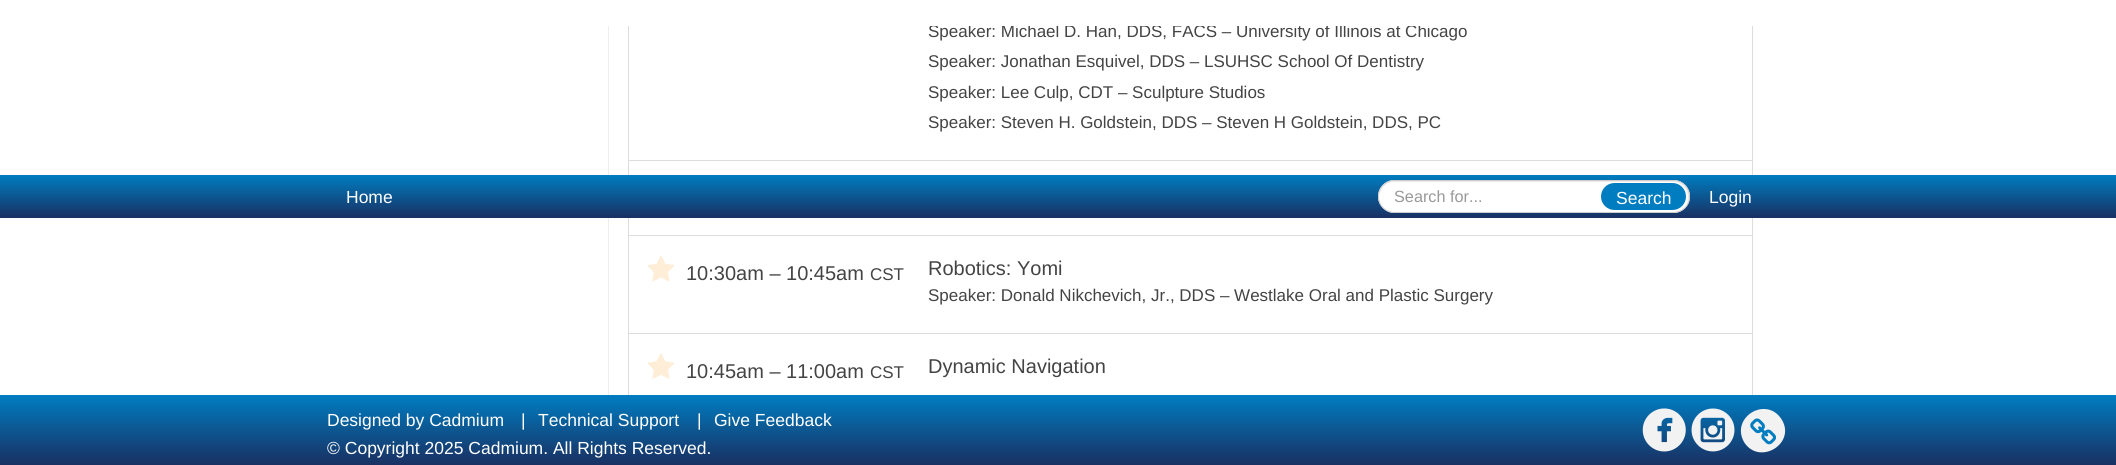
#include <cairo/cairo.h>
#include <math.h>
#include <stddef.h>

static cairo_t *cr;

static void use_color(int r, int g, int b) {
  cairo_set_source_rgb(cr, r / 255.0, g / 255.0, b / 255.0);
}

static void text(double x, double y, const char *s, const char *family, double size, int italic, int bold, int r, int g, int b) {
  cairo_select_font_face(cr, family, italic ? CAIRO_FONT_SLANT_ITALIC : CAIRO_FONT_SLANT_NORMAL,
    bold ? CAIRO_FONT_WEIGHT_BOLD : CAIRO_FONT_WEIGHT_NORMAL);
  cairo_set_font_size(cr, size);
  use_color(r, g, b);
  cairo_move_to(cr, x, y);
  cairo_show_text(cr, s);
}

static void box(double x, double y, double w, double h, int r, int g, int b) {
  use_color(r, g, b);
  cairo_rectangle(cr, x, y, w, h);
  cairo_fill(cr);
}

static void round_rect(double x, double y, double w, double h, double r) {
  cairo_new_sub_path(cr);
  cairo_arc(cr, x + w - r, y + h - r, r, 0, M_PI / 2);
  cairo_arc(cr, x + r, y + h - r, r, M_PI / 2, M_PI);
  cairo_arc(cr, x + r, y + r, r, M_PI, 1.5 * M_PI);
  cairo_arc(cr, x + w - r, y + r, r, 1.5 * M_PI, 2 * M_PI);
  cairo_close_path(cr);
}

static void picture(const char *path, double x, double y, double w, double h) {
  cairo_surface_t *image = cairo_image_surface_create_from_png(path);
  cairo_save(cr);
  cairo_set_source_surface(cr, image, x, y);
  cairo_rectangle(cr, x, y, w, h);
  cairo_fill(cr);
  cairo_restore(cr);
  cairo_surface_destroy(image);
}

static void draw(void) {
  cairo_pattern_t *gradient;
  use_color(255, 255, 255);
  cairo_paint(cr);
  box(608, 26, 1, 369, 238, 238, 238);
  cairo_rectangle(cr, 628.5, -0.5, 1124, 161);
  use_color(221, 221, 221);
  cairo_set_line_width(cr, 1);
  cairo_stroke(cr);
  cairo_rectangle(cr, 628.5, 160.5, 1124, 75);
  cairo_stroke(cr);
  cairo_rectangle(cr, 628.5, 235.5, 1124, 98);
  cairo_stroke(cr);
  picture("img_01.png", 647, 256, 28, 26);
  cairo_rectangle(cr, 628.5, 333.5, 1124, 97);
  cairo_stroke(cr);
  picture("img_02.png", 647, 353, 28, 26);
  gradient = cairo_pattern_create_linear(1058, 175, 1058, 218);
  cairo_pattern_add_color_stop_rgba(gradient, 0, 0, 0.49, 0.753, 1);
  cairo_pattern_add_color_stop_rgba(gradient, 1, 0.098, 0.188, 0.384, 1);
  cairo_set_source(cr, gradient);
  cairo_pattern_destroy(gradient);
  cairo_rectangle(cr, 0, 175, 2116, 43);
  cairo_fill(cr);
  use_color(255, 255, 255);
  round_rect(1378, 180, 312, 33, 16.5);
  cairo_fill(cr);
  use_color(236, 236, 236);
  cairo_new_path(cr);
  cairo_move_to(cr, 1394, 182);
  cairo_line_to(cr, 1674, 182);
  cairo_curve_to(cr, 1686, 183, 1690, 194, 1687, 203);
  cairo_curve_to(cr, 1688, 201, 1689, 199, 1689, 196);
  cairo_curve_to(cr, 1689, 188, 1682, 181, 1674, 181);
  cairo_line_to(cr, 1394, 181);
  cairo_curve_to(cr, 1386, 181, 1379, 187, 1379, 196);
  cairo_curve_to(cr, 1380, 188, 1386, 182, 1394, 182);
  cairo_close_path(cr);
  cairo_fill(cr);
  round_rect(1378.5, 180.5, 311, 32, 16);
  use_color(204, 204, 204);
  cairo_stroke(cr);
  use_color(0, 125, 192);
  round_rect(1601, 183, 85, 27, 13.5);
  cairo_fill(cr);
  gradient = cairo_pattern_create_linear(1058, 395, 1058, 465);
  cairo_pattern_add_color_stop_rgba(gradient, 0, 0, 0.49, 0.753, 1);
  cairo_pattern_add_color_stop_rgba(gradient, 1, 0.098, 0.188, 0.384, 1);
  cairo_set_source(cr, gradient);
  cairo_pattern_destroy(gradient);
  cairo_rectangle(cr, 0, 395, 2116, 70);
  cairo_fill(cr);
  picture("img_03.png", 1642, 408, 44, 44);
  picture("img_04.png", 1691, 408, 44, 44);
  use_color(242, 242, 242);
  cairo_new_path(cr);
  cairo_move_to(cr, 1782, 420);
  cairo_curve_to(cr, 1796, 444, 1759, 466, 1744, 442);
  cairo_curve_to(cr, 1730, 417, 1767, 395, 1782, 420);
  cairo_close_path(cr);
  cairo_fill(cr);
  picture("img_05.png", 1750, 418, 26, 27);
  text(928, 37, "Speaker: Michael D. Han, DDS, FACS – University of Illinois at Chicago", "Liberation Sans", 17, 0, 0, 68, 68, 68);
  box(628, 0, 1125, 26, 255, 255, 255);
  text(928, 67, "Speaker: Jonathan Esquivel, DDS – LSUHSC School Of Dentistry", "Liberation Sans", 17, 0, 0, 68, 68, 68);
  text(928, 98, "Speaker: Lee Culp, CDT – Sculpture Studios", "Liberation Sans", 17, 0, 0, 68, 68, 68);
  text(928, 128, "Speaker: Steven H. Goldstein, DDS – Steven H Goldstein, DDS, PC", "Liberation Sans", 17, 0, 0, 68, 68, 68);
  text(686, 280, "10:30am – 10:45am", "Liberation Sans", 20, 0, 0, 68, 68, 68);
  text(870, 280, "CST", "Liberation Sans", 17, 0, 0, 68, 68, 68);
  text(928, 275, "Robotics: Yomi", "Liberation Sans", 20, 0, 0, 68, 68, 68);
  text(928, 301, "Speaker: Donald Nikchevich, Jr., DDS – Westlake Oral and Plastic Surgery", "Liberation Sans", 17, 0, 0, 68, 68, 68);
  text(686, 378, "10:45am – 11:00am", "Liberation Sans", 20, 0, 0, 68, 68, 68);
  text(870, 378, "CST", "Liberation Sans", 17, 0, 0, 68, 68, 68);
  text(928, 373, "Dynamic Navigation", "Liberation Sans", 20, 0, 0, 68, 68, 68);
  text(346, 203, "Home", "Liberation Sans", 17.5, 0, 0, 255, 255, 255);
  text(1394, 202, "Search for...", "Liberation Sans", 16.25, 0, 0, 153, 153, 153);
  text(1616, 204, "Search", "Liberation Sans", 17.5, 0, 0, 255, 255, 255);
  text(1709, 203, "Login", "Liberation Sans", 17.5, 0, 0, 255, 255, 255);
  text(327, 426, "Designed by Cadmium", "Liberation Sans", 17.5, 0, 0, 255, 255, 255);
  text(521, 426, "|", "Liberation Sans", 17.5, 0, 0, 255, 255, 255);
  text(538, 426, "Technical Support", "Liberation Sans", 17.5, 0, 0, 255, 255, 255);
  text(697, 426, "|", "Liberation Sans", 17.5, 0, 0, 255, 255, 255);
  text(714, 426, "Give Feedback", "Liberation Sans", 17.5, 0, 0, 255, 255, 255);
  text(327, 454, "© Copyright 2025 Cadmium. All Rights Reserved.", "Liberation Sans", 17.5, 0, 0, 255, 255, 255);
}

int main(void) {
  cairo_surface_t *surface = cairo_image_surface_create(CAIRO_FORMAT_RGB24, 2116, 465);
  cr = cairo_create(surface);
  cairo_font_options_t *options = cairo_font_options_create();
  cairo_font_options_set_hint_metrics(options, CAIRO_HINT_METRICS_OFF);
  cairo_font_options_set_hint_style(options, CAIRO_HINT_STYLE_NONE);
  cairo_set_font_options(cr, options);
  cairo_set_miter_limit(cr, 4);
  draw();
  cairo_surface_write_to_png(surface, "out.png");
  cairo_font_options_destroy(options);
  cairo_destroy(cr);
  cairo_surface_destroy(surface);
  return 0;
}
